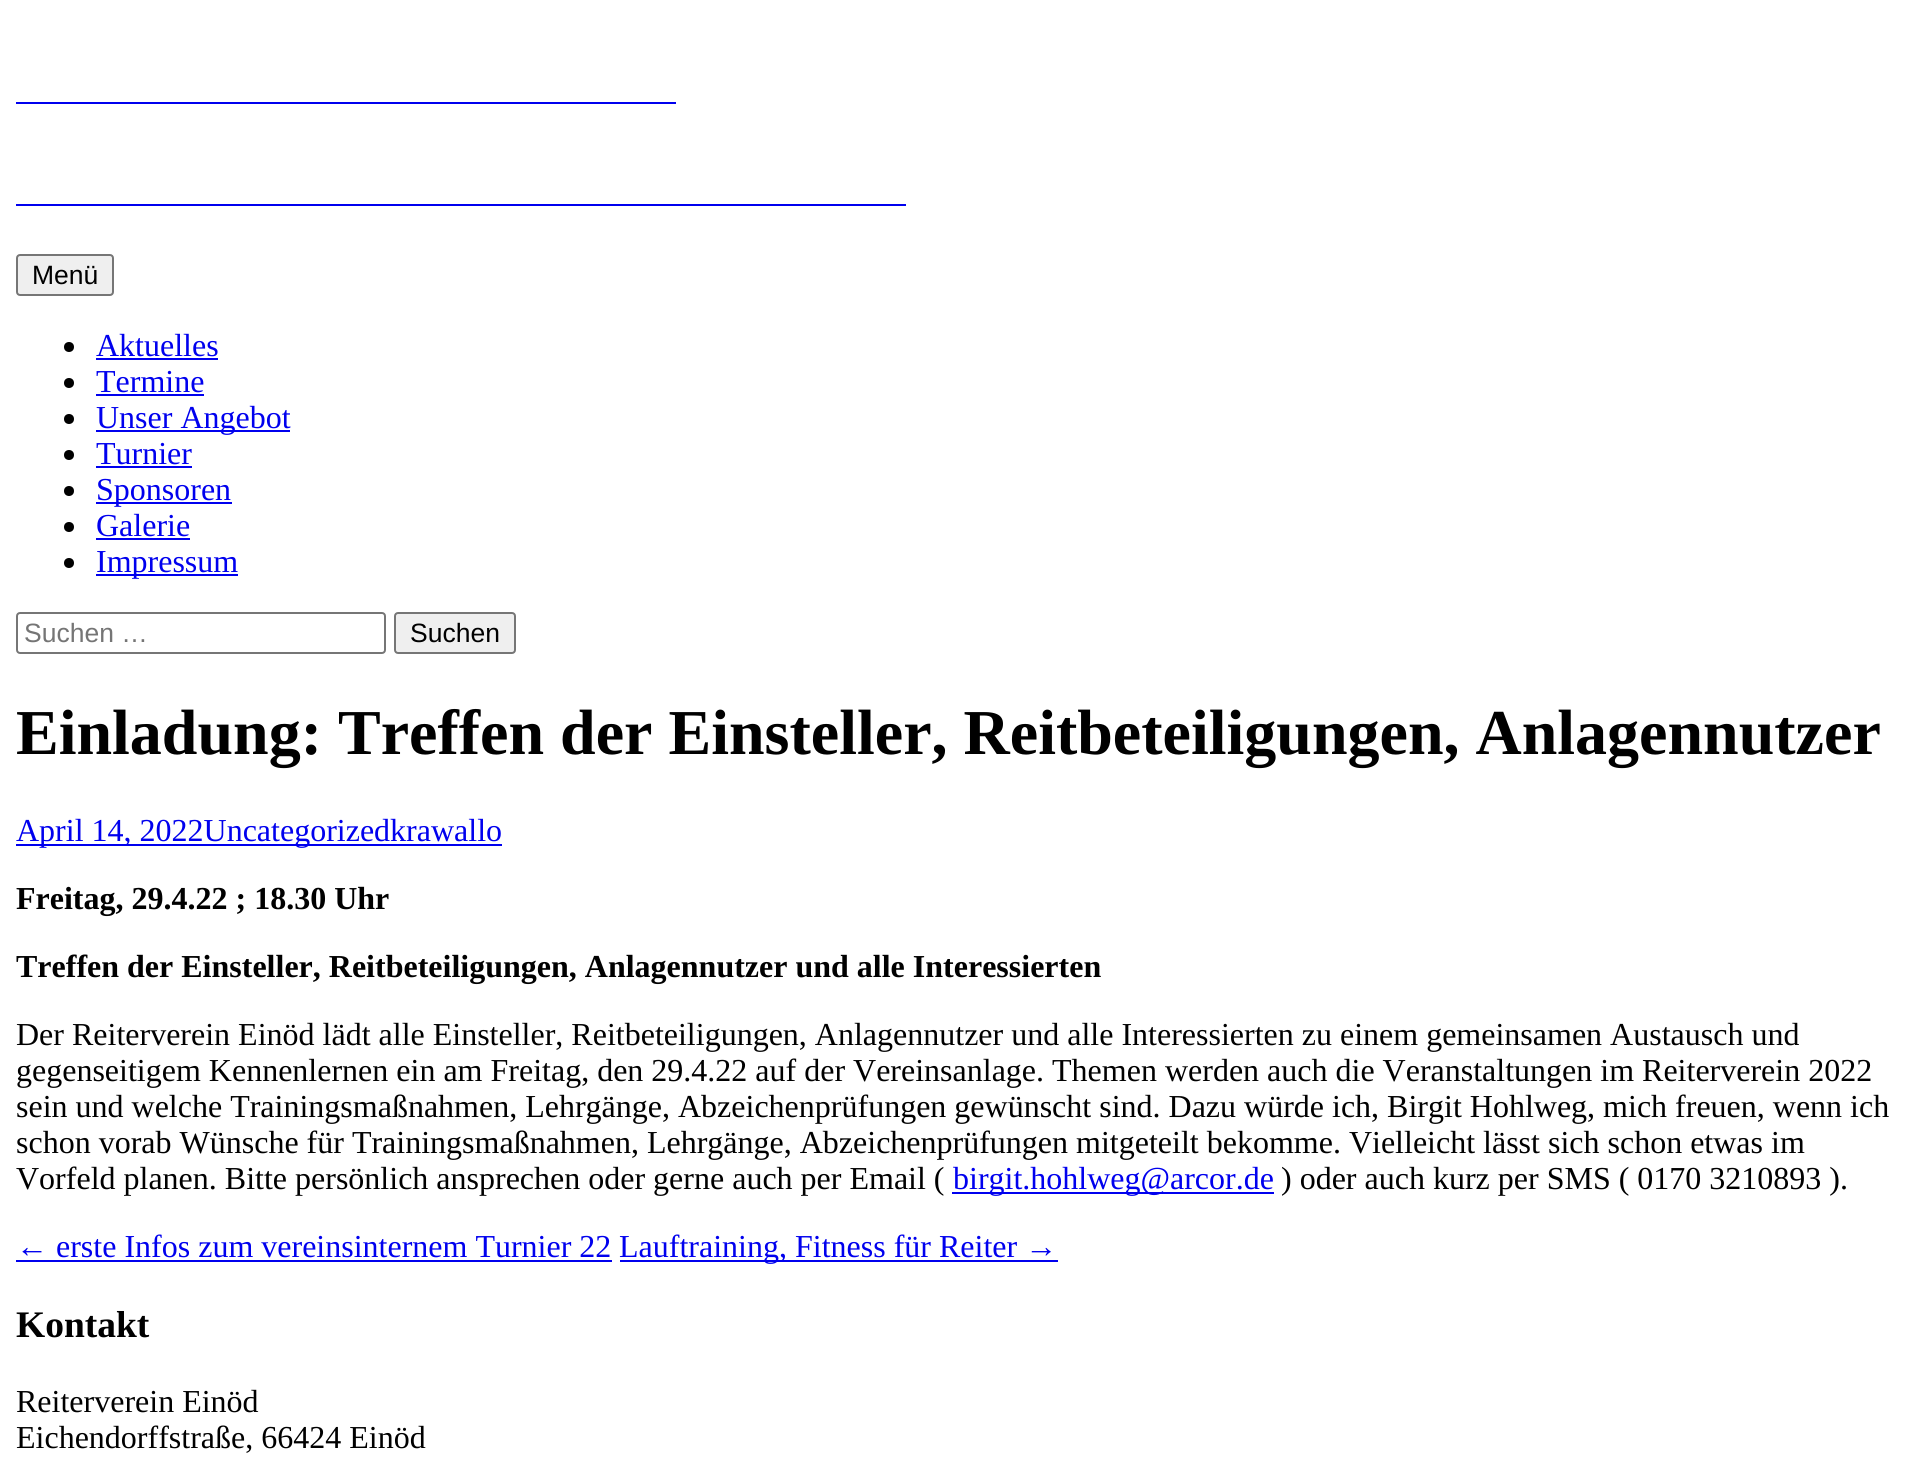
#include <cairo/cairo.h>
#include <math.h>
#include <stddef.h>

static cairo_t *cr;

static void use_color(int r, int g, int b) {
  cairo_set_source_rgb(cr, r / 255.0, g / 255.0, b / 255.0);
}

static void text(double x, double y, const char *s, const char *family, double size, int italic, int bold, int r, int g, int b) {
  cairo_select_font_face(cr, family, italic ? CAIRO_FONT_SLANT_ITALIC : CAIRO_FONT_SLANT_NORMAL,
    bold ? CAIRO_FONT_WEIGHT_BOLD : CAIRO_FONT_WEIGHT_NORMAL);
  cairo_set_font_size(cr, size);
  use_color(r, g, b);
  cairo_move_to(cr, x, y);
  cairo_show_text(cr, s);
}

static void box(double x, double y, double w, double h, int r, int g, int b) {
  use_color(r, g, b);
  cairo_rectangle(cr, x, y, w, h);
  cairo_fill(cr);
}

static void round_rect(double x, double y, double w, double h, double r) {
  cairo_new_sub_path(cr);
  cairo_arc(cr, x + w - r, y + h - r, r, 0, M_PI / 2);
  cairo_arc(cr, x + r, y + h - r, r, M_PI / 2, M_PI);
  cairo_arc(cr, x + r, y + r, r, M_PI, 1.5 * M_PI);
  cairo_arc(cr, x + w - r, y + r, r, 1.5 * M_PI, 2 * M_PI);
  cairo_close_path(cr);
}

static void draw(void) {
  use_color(255, 255, 255);
  cairo_paint(cr);
  box(16, 102, 660, 2, 0, 0, 238);
  box(16, 204, 890, 2, 0, 0, 238);
  use_color(239, 239, 239);
  round_rect(17, 255, 96, 40, 3);
  cairo_fill_preserve(cr);
  use_color(118, 118, 118);
  cairo_stroke(cr);
  use_color(0, 0, 0);
  cairo_arc(cr, 69, 347, 5, 0, 2 * M_PI);
  cairo_fill(cr);
  box(96, 358, 122, 2, 0, 0, 238);
  use_color(0, 0, 0);
  cairo_arc(cr, 69, 383, 5, 0, 2 * M_PI);
  cairo_fill(cr);
  box(96, 394, 108, 2, 0, 0, 238);
  use_color(0, 0, 0);
  cairo_arc(cr, 69, 419, 5, 0, 2 * M_PI);
  cairo_fill(cr);
  box(96, 430, 194, 2, 0, 0, 238);
  use_color(0, 0, 0);
  cairo_arc(cr, 69, 455, 5, 0, 2 * M_PI);
  cairo_fill(cr);
  box(96, 466, 96, 2, 0, 0, 238);
  use_color(0, 0, 0);
  cairo_arc(cr, 69, 491, 5, 0, 2 * M_PI);
  cairo_fill(cr);
  box(96, 502, 136, 2, 0, 0, 238);
  use_color(0, 0, 0);
  cairo_arc(cr, 69, 527, 5, 0, 2 * M_PI);
  cairo_fill(cr);
  box(96, 538, 94, 2, 0, 0, 238);
  use_color(0, 0, 0);
  cairo_arc(cr, 69, 563, 5, 0, 2 * M_PI);
  cairo_fill(cr);
  box(96, 574, 142, 2, 0, 0, 238);
  round_rect(17, 613, 368, 40, 3);
  use_color(118, 118, 118);
  cairo_stroke(cr);
  use_color(239, 239, 239);
  round_rect(395, 613, 120, 40, 3);
  cairo_fill_preserve(cr);
  use_color(118, 118, 118);
  cairo_stroke(cr);
  box(16, 844, 486, 2, 0, 0, 238);
  box(952, 1192, 322, 2, 0, 0, 238);
  box(16, 1260, 596, 2, 0, 0, 238);
  box(620, 1260, 438, 2, 0, 0, 238);
  text(32, 284, "Menü", "Liberation Sans", 26.5, 0, 0, 0, 0, 0);
  text(96, 356, "Aktuelles", "Liberation Serif", 32, 0, 0, 0, 0, 238);
  text(96, 392, "Termine", "Liberation Serif", 32, 0, 0, 0, 0, 238);
  text(96, 428, "Unser Angebot", "Liberation Serif", 32, 0, 0, 0, 0, 238);
  text(96, 464, "Turnier", "Liberation Serif", 32, 0, 0, 0, 0, 238);
  text(96, 500, "Sponsoren", "Liberation Serif", 32, 0, 0, 0, 0, 238);
  text(96, 536, "Galerie", "Liberation Serif", 32, 0, 0, 0, 0, 238);
  text(96, 572, "Impressum", "Liberation Serif", 32, 0, 0, 0, 0, 238);
  text(24, 642, "Suchen …", "Liberation Sans", 26.5, 0, 0, 117, 117, 117);
  text(410, 642, "Suchen", "Liberation Sans", 26.5, 0, 0, 0, 0, 0);
  text(16, 754, "Einladung: Treffen der Einsteller, Reitbeteiligungen, Anlagennutzer", "Liberation Serif", 64, 0, 1, 0, 0, 0);
  text(16, 841, "April 14, 2022Uncategorizedkrawallo", "Liberation Serif", 32, 0, 0, 0, 0, 238);
  text(16, 909, "Freitag, 29.4.22 ; 18.30 Uhr", "Liberation Serif", 32, 0, 1, 0, 0, 0);
  text(16, 977, "Treffen der Einsteller, Reitbeteiligungen, Anlagennutzer und alle Interessierten", "Liberation Serif", 32, 0, 1, 0, 0, 0);
  text(16, 1045, "Der Reiterverein Einöd lädt alle Einsteller, Reitbeteiligungen, Anlagennutzer und alle Interessierten zu einem gemeinsamen Austausch und", "Liberation Serif", 32, 0, 0, 0, 0, 0);
  text(16, 1081, "gegenseitigem Kennenlernen ein am Freitag, den 29.4.22 auf der Vereinsanlage. Themen werden auch die Veranstaltungen im Reiterverein 2022", "Liberation Serif", 32, 0, 0, 0, 0, 0);
  text(16, 1117, "sein und welche Trainingsmaßnahmen, Lehrgänge, Abzeichenprüfungen gewünscht sind. Dazu würde ich, Birgit Hohlweg, mich freuen, wenn ich", "Liberation Serif", 32, 0, 0, 0, 0, 0);
  text(16, 1153, "schon vorab Wünsche für Trainingsmaßnahmen, Lehrgänge, Abzeichenprüfungen mitgeteilt bekomme. Vielleicht lässt sich schon etwas im", "Liberation Serif", 32, 0, 0, 0, 0, 0);
  text(16, 1189, "Vorfeld planen. Bitte persönlich ansprechen oder gerne auch per Email (", "Liberation Serif", 32, 0, 0, 0, 0, 0);
  text(953, 1189, "birgit.hohlweg@arcor.de", "Liberation Serif", 32, 0, 0, 0, 0, 238);
  text(1281, 1189, ") oder auch kurz per SMS ( 0170 3210893 ).", "Liberation Serif", 32, 0, 0, 0, 0, 0);
  text(16, 1257, "← erste Infos zum vereinsinternem Turnier 22", "Liberation Serif", 32, 0, 0, 0, 0, 238);
  text(619, 1257, "Lauftraining, Fitness für Reiter →", "Liberation Serif", 32, 0, 0, 0, 0, 238);
  text(16, 1337, "Kontakt", "Liberation Serif", 37.5, 0, 1, 0, 0, 0);
  text(16, 1412, "Reiterverein Einöd", "Liberation Serif", 32, 0, 0, 0, 0, 0);
  text(16, 1448, "Eichendorffstraße, 66424 Einöd", "Liberation Serif", 32, 0, 0, 0, 0, 0);
}

int main(void) {
  cairo_surface_t *surface = cairo_image_surface_create(CAIRO_FORMAT_RGB24, 1927, 1472);
  cr = cairo_create(surface);
  cairo_font_options_t *options = cairo_font_options_create();
  cairo_font_options_set_hint_metrics(options, CAIRO_HINT_METRICS_OFF);
  cairo_font_options_set_hint_style(options, CAIRO_HINT_STYLE_NONE);
  cairo_set_font_options(cr, options);
  cairo_set_miter_limit(cr, 4);
  draw();
  cairo_surface_write_to_png(surface, "out.png");
  cairo_font_options_destroy(options);
  cairo_destroy(cr);
  cairo_surface_destroy(surface);
  return 0;
}
